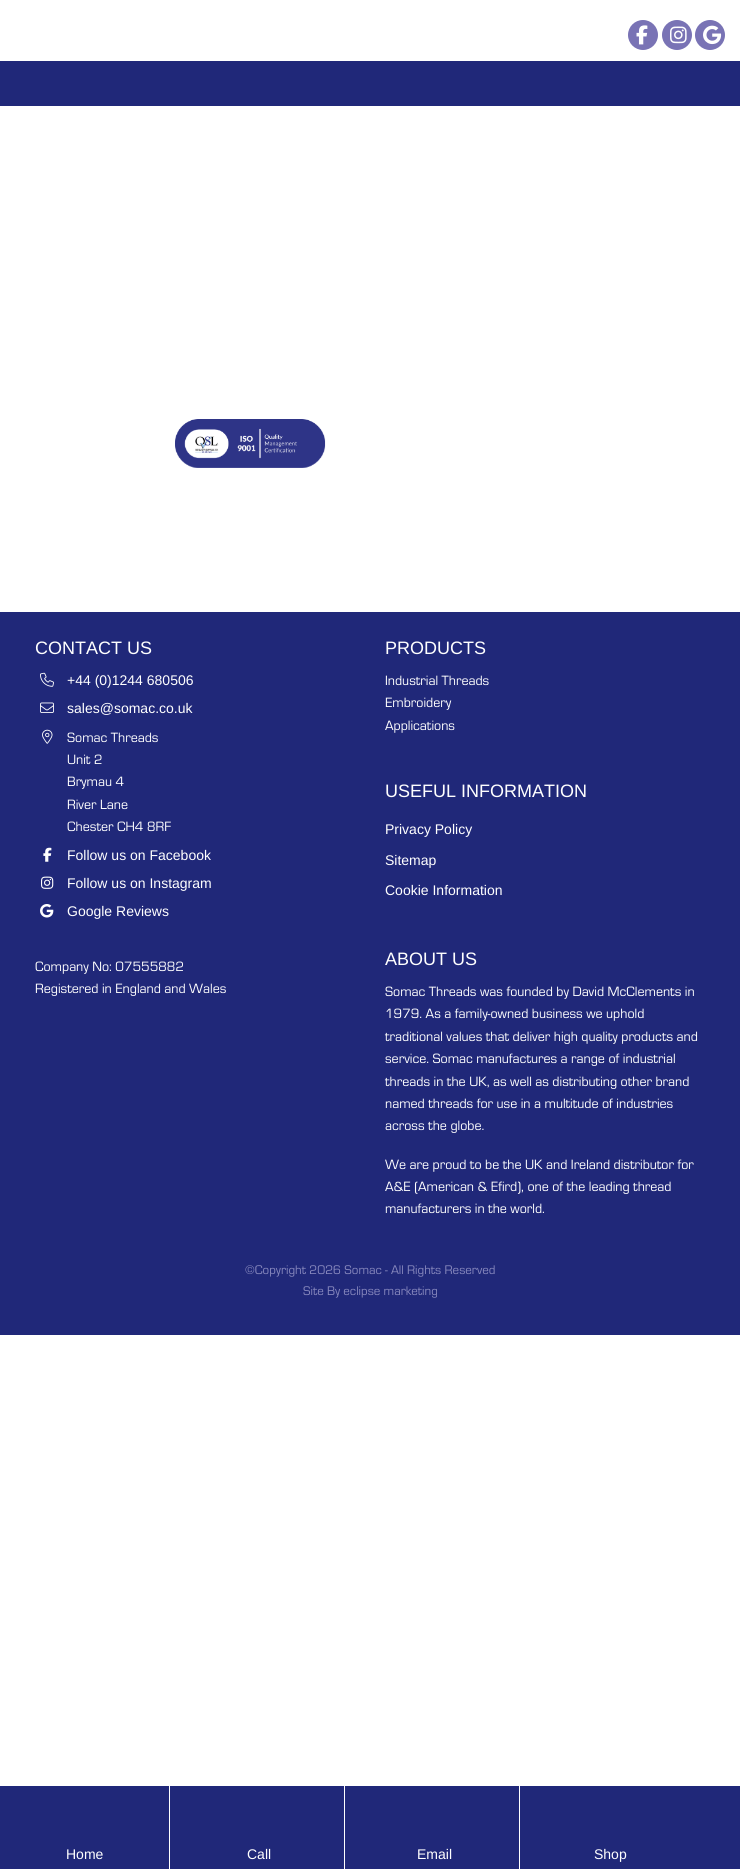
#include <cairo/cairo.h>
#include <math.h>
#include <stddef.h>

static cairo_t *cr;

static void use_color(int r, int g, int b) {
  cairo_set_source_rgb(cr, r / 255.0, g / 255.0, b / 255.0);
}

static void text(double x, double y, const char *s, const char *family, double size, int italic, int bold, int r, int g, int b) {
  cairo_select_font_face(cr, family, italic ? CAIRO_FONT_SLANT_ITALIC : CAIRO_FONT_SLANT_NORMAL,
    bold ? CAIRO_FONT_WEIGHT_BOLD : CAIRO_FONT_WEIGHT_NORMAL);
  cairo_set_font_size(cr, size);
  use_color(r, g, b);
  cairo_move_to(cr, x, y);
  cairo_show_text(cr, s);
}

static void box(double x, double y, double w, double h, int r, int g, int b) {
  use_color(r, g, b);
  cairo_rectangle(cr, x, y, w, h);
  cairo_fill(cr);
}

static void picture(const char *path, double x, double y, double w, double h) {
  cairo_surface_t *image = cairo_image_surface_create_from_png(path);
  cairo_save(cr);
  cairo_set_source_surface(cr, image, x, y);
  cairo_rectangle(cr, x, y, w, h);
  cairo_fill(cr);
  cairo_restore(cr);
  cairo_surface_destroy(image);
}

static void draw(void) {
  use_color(255, 255, 255);
  cairo_paint(cr);
  box(0, 612, 740, 723, 32, 40, 121);
  picture("img_01.png", 40, 672, 14, 15);
  picture("img_02.png", 40, 702, 14, 11);
  picture("img_03.png", 42, 729, 11, 15);
  picture("img_04.png", 43, 847, 9, 15);
  picture("img_05.png", 41, 876, 13, 13);
  picture("img_06.png", 40, 904, 14, 14);
  use_color(121, 115, 181);
  cairo_arc(cr, 643, 35, 15, 0, 2 * M_PI);
  cairo_fill(cr);
  picture("img_07.png", 636, 25, 12, 20);
  cairo_arc(cr, 677, 35, 15, 0, 2 * M_PI);
  cairo_fill(cr);
  picture("img_08.png", 670, 26, 17, 18);
  cairo_arc(cr, 710, 35, 15, 0, 2 * M_PI);
  cairo_fill(cr);
  picture("img_09.png", 703, 25, 19, 20);
  box(0, 61, 740, 45, 32, 40, 121);
  picture("img_10.png", 175, 419, 151, 49);
  box(0, 1786, 740, 83, 32, 40, 121);
  box(169, 1786, 1, 83, 255, 255, 255);
  box(344, 1786, 1, 83, 255, 255, 255);
  box(519, 1786, 1, 83, 255, 255, 255);
  text(35, 654, "CONTACT US", "Liberation Sans", 18, 0, 0, 255, 255, 255);
  text(67, 685, "+44 (0)1244 680506", "Liberation Sans", 14, 0, 0, 255, 255, 255);
  text(67, 713, "sales@somac.co.uk", "Liberation Sans", 14, 0, 0, 255, 255, 255);
  text(67, 742, "Somac Threads", "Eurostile", 14, 0, 0, 255, 255, 255);
  text(67, 764, "Unit 2", "Eurostile", 14, 0, 0, 255, 255, 255);
  text(67, 786, "Brymau 4", "Eurostile", 14, 0, 0, 255, 255, 255);
  text(67, 809, "River Lane", "Eurostile", 14, 0, 0, 255, 255, 255);
  text(67, 831, "Chester CH4 8RF", "Eurostile", 14, 0, 0, 255, 255, 255);
  text(67, 860, "Follow us on Facebook", "Liberation Sans", 14, 0, 0, 255, 255, 255);
  text(67, 888, "Follow us on Instagram", "Liberation Sans", 14, 0, 0, 255, 255, 255);
  text(67, 916, "Google Reviews", "Liberation Sans", 14, 0, 0, 255, 255, 255);
  text(35, 971, "Company No: 07555882", "Eurostile", 14, 0, 0, 255, 255, 255);
  text(35, 993, "Registered in England and Wales", "Eurostile", 14, 0, 0, 255, 255, 255);
  text(385, 654, "PRODUCTS", "Liberation Sans", 18, 0, 0, 255, 255, 255);
  text(385, 685, "Industrial Threads", "Eurostile", 14, 0, 0, 255, 255, 255);
  text(385, 707, "Embroidery", "Eurostile", 14, 0, 0, 255, 255, 255);
  text(385, 730, "Applications", "Eurostile", 14, 0, 0, 255, 255, 255);
  text(385, 797, "USEFUL INFORMATION", "Liberation Sans", 18, 0, 0, 255, 255, 255);
  text(385, 834, "Privacy Policy", "Liberation Sans", 14, 0, 0, 255, 255, 255);
  text(385, 865, "Sitemap", "Liberation Sans", 14, 0, 0, 255, 255, 255);
  text(385, 895, "Cookie Information", "Liberation Sans", 14, 0, 0, 255, 255, 255);
  text(385, 965, "ABOUT US", "Liberation Sans", 18, 0, 0, 255, 255, 255);
  text(385, 996, "Somac Threads was founded by David McClements in", "Eurostile", 14, 0, 0, 255, 255, 255);
  text(385, 1018, "1979. As a family-owned business we uphold", "Eurostile", 14, 0, 0, 255, 255, 255);
  text(385, 1041, "traditional values that deliver high quality products and", "Eurostile", 14, 0, 0, 255, 255, 255);
  text(385, 1063, "service. Somac manufactures a range of industrial", "Eurostile", 14, 0, 0, 255, 255, 255);
  text(385, 1086, "threads in the UK, as well as distributing other brand", "Eurostile", 14, 0, 0, 255, 255, 255);
  text(385, 1108, "named threads for use in a multitude of industries", "Eurostile", 14, 0, 0, 255, 255, 255);
  text(385, 1130, "across the globe.", "Eurostile", 14, 0, 0, 255, 255, 255);
  text(385, 1169, "We are proud to be the UK and Ireland distributor for", "Eurostile", 14, 0, 0, 255, 255, 255);
  text(385, 1191, "A&E (American & Efird), one of the leading thread", "Eurostile", 14, 0, 0, 255, 255, 255);
  text(385, 1213, "manufacturers in the world.", "Eurostile", 14, 0, 0, 255, 255, 255);
  text(245, 1274, "©Copyright 2026 Somac - All Rights Reserved", "Eurostile", 13, 0, 0, 135, 136, 189);
  text(303, 1295, "Site By eclipse marketing", "Eurostile", 13, 0, 0, 135, 136, 189);
  text(66, 1859, "Home", "Liberation Sans", 14, 0, 0, 255, 255, 255);
  text(247, 1859, "Call", "Liberation Sans", 14, 0, 0, 255, 255, 255);
  text(417, 1859, "Email", "Liberation Sans", 14, 0, 0, 255, 255, 255);
  text(594, 1859, "Shop", "Liberation Sans", 14, 0, 0, 255, 255, 255);
}

int main(void) {
  cairo_surface_t *surface = cairo_image_surface_create(CAIRO_FORMAT_RGB24, 740, 1869);
  cr = cairo_create(surface);
  cairo_font_options_t *options = cairo_font_options_create();
  cairo_font_options_set_hint_metrics(options, CAIRO_HINT_METRICS_OFF);
  cairo_font_options_set_hint_style(options, CAIRO_HINT_STYLE_NONE);
  cairo_set_font_options(cr, options);
  cairo_set_miter_limit(cr, 4);
  draw();
  cairo_surface_write_to_png(surface, "out.png");
  cairo_font_options_destroy(options);
  cairo_destroy(cr);
  cairo_surface_destroy(surface);
  return 0;
}
